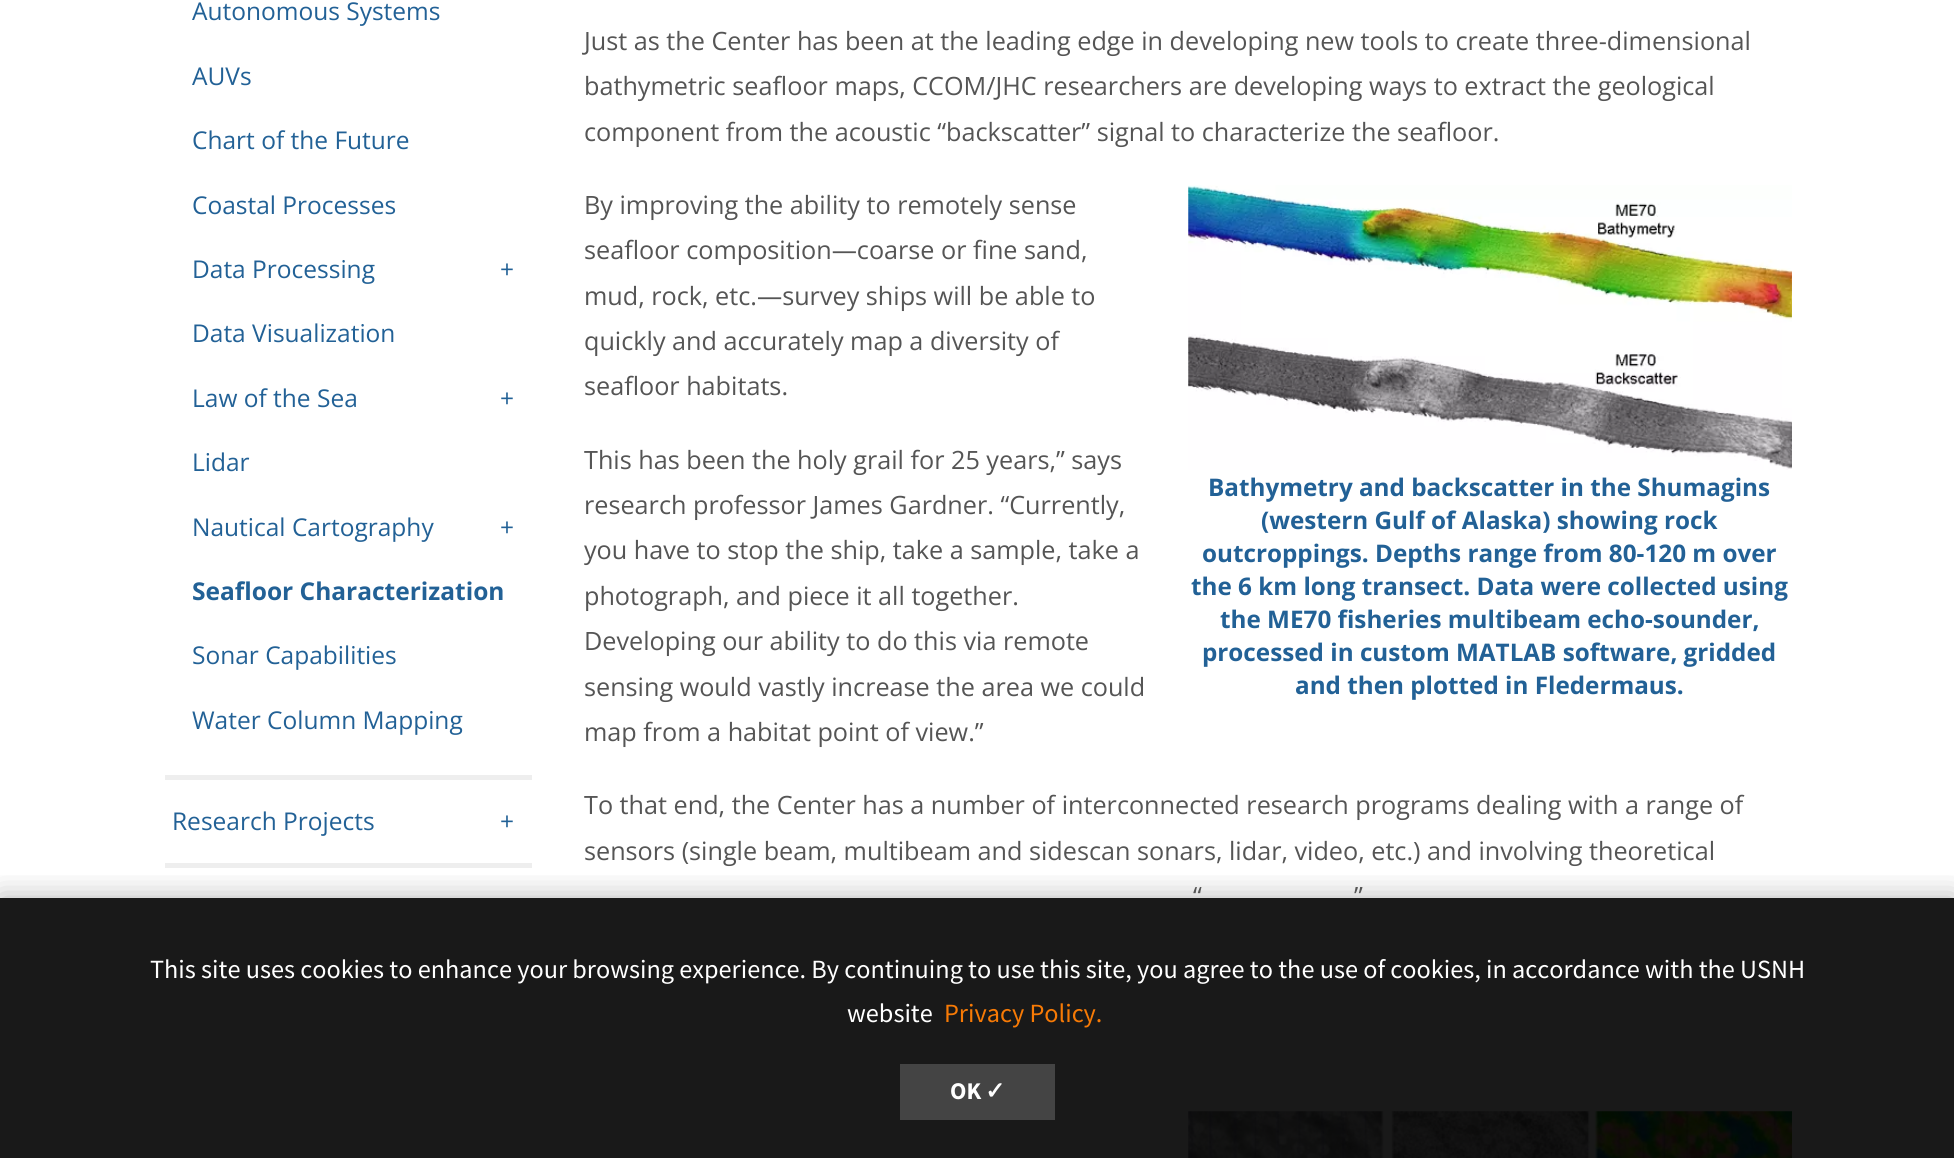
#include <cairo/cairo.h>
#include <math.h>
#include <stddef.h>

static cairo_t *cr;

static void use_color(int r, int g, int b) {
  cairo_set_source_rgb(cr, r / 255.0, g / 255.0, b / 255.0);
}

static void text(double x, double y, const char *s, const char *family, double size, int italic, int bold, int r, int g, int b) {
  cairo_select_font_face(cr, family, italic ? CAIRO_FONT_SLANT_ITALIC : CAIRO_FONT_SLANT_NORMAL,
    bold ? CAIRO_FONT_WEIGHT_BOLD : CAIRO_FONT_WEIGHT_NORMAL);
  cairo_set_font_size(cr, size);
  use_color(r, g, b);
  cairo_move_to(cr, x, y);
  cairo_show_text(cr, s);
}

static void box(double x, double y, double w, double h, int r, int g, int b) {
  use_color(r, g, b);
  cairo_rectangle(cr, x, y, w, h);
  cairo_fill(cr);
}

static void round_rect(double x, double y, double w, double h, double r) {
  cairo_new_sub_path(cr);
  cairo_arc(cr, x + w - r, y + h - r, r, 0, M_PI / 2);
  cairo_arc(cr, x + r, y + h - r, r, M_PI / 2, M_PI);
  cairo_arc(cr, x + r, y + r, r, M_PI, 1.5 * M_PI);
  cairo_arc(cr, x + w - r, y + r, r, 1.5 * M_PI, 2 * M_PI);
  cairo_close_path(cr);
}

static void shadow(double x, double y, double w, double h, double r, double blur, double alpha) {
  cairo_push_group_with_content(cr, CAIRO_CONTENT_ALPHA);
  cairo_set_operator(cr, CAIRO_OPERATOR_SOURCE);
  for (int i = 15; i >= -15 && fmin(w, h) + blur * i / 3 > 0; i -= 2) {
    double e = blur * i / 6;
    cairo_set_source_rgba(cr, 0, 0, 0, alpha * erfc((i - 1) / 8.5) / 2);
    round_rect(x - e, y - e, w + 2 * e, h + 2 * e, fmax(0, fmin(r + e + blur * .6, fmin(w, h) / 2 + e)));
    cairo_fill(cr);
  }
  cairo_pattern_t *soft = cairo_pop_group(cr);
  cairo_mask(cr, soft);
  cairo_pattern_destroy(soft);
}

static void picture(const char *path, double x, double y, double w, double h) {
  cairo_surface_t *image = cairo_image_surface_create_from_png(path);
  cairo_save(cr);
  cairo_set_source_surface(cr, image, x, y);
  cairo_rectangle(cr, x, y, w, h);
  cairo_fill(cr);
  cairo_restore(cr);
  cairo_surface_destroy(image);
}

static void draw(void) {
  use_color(255, 255, 255);
  cairo_paint(cr);
  box(165, 775, 367, 5, 238, 238, 238);
  box(165, 863, 367, 5, 238, 238, 238);
  picture("img_01.png", 1188, 185, 604, 285);
  picture("img_02.png", 1188, 1111, 604, 47);
  cairo_save(cr);
  cairo_rectangle(cr, 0, 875, 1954, 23);
  cairo_clip(cr);
  use_color(0, 0, 0);
  shadow(0, 898, 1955, 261, 0, 15, 0.3);
  cairo_restore(cr);
  cairo_set_source_rgba(cr, 0, 0, 0, 0.9);
  cairo_rectangle(cr, 0, 898, 1954, 260);
  cairo_fill(cr);
  box(900, 1064, 155, 56, 68, 68, 68);
  text(192, 20, "Autonomous Systems", "Open Sans", 24.5, 0, 0, 34, 97, 150);
  text(192, 85, "AUVs", "Open Sans", 24.5, 0, 0, 34, 97, 150);
  text(192, 149, "Chart of the Future", "Open Sans", 24.5, 0, 0, 34, 97, 150);
  text(192, 214, "Coastal Processes", "Open Sans", 24.5, 0, 0, 34, 97, 150);
  text(192, 278, "Data Processing", "Open Sans", 24.5, 0, 0, 34, 97, 150);
  text(500, 278, "+", "Open Sans", 24.5, 0, 0, 34, 97, 150);
  text(192, 342, "Data Visualization", "Open Sans", 24.5, 0, 0, 34, 97, 150);
  text(192, 407, "Law of the Sea", "Open Sans", 24.5, 0, 0, 34, 97, 150);
  text(500, 407, "+", "Open Sans", 24.5, 0, 0, 34, 97, 150);
  text(192, 471, "Lidar", "Open Sans", 24.5, 0, 0, 34, 97, 150);
  text(192, 536, "Nautical Cartography", "Open Sans", 24.5, 0, 0, 34, 97, 150);
  text(500, 536, "+", "Open Sans", 24.5, 0, 0, 34, 97, 150);
  text(192, 600, "Seafloor Characterization", "Open Sans", 24.5, 0, 1, 34, 97, 150);
  text(192, 664, "Sonar Capabilities", "Open Sans", 24.5, 0, 0, 34, 97, 150);
  text(192, 729, "Water Column Mapping", "Open Sans", 24.5, 0, 0, 34, 97, 150);
  text(172, 830, "Research Projects", "Open Sans", 24.5, 0, 0, 34, 97, 150);
  text(500, 830, "+", "Open Sans", 24.5, 0, 0, 34, 97, 150);
  text(584, 50, "Just as the Center has been at the leading edge in developing new tools to create three-dimensional", "Open Sans", 25.2, 0, 0, 85, 85, 85);
  text(584, 95, "bathymetric seafloor maps, CCOM/JHC researchers are developing ways to extract the geological", "Open Sans", 25.2, 0, 0, 85, 85, 85);
  text(584, 141, "component from the acoustic “backscatter” signal to characterize the seafloor.", "Open Sans", 25.2, 0, 0, 85, 85, 85);
  text(584, 214, "By improving the ability to remotely sense", "Open Sans", 25.2, 0, 0, 85, 85, 85);
  text(584, 259, "seafloor composition—coarse or fine sand,", "Open Sans", 25.2, 0, 0, 85, 85, 85);
  text(584, 305, "mud, rock, etc.—survey ships will be able to", "Open Sans", 25.2, 0, 0, 85, 85, 85);
  text(584, 350, "quickly and accurately map a diversity of", "Open Sans", 25.2, 0, 0, 85, 85, 85);
  text(584, 395, "seafloor habitats.", "Open Sans", 25.2, 0, 0, 85, 85, 85);
  text(584, 469, "This has been the holy grail for 25 years,” says", "Open Sans", 25.2, 0, 0, 85, 85, 85);
  text(584, 514, "research professor James Gardner. “Currently,", "Open Sans", 25.2, 0, 0, 85, 85, 85);
  text(584, 559, "you have to stop the ship, take a sample, take a", "Open Sans", 25.2, 0, 0, 85, 85, 85);
  text(584, 605, "photograph, and piece it all together.", "Open Sans", 25.2, 0, 0, 85, 85, 85);
  text(584, 650, "Developing our ability to do this via remote", "Open Sans", 25.2, 0, 0, 85, 85, 85);
  text(584, 696, "sensing would vastly increase the area we could", "Open Sans", 25.2, 0, 0, 85, 85, 85);
  text(584, 741, "map from a habitat point of view.”", "Open Sans", 25.2, 0, 0, 85, 85, 85);
  text(1208, 496, "Bathymetry and backscatter in the Shumagins", "Open Sans", 24.25, 0, 1, 34, 97, 150);
  text(1261, 529, "(western Gulf of Alaska) showing rock", "Open Sans", 24.25, 0, 1, 34, 97, 150);
  text(1202, 562, "outcroppings. Depths range from 80-120 m over", "Open Sans", 24.25, 0, 1, 34, 97, 150);
  text(1191, 595, "the 6 km long transect. Data were collected using", "Open Sans", 24.25, 0, 1, 34, 97, 150);
  text(1220, 628, "the ME70 fisheries multibeam echo-sounder,", "Open Sans", 24.25, 0, 1, 34, 97, 150);
  text(1202, 661, "processed in custom MATLAB software, gridded", "Open Sans", 24.25, 0, 1, 34, 97, 150);
  text(1295, 694, "and then plotted in Fledermaus.", "Open Sans", 24.25, 0, 1, 34, 97, 150);
  text(584, 814, "To that end, the Center has a number of interconnected research programs dealing with a range of", "Open Sans", 25.2, 0, 0, 85, 85, 85);
  text(584, 860, "sensors (single beam, multibeam and sidescan sonars, lidar, video, etc.) and involving theoretical", "Open Sans", 25.2, 0, 0, 85, 85, 85);
  text(1193, 905, "“", "Open Sans", 25.2, 0, 0, 85, 85, 85);
  text(1354, 905, "”", "Open Sans", 25.2, 0, 0, 85, 85, 85);
  text(150, 978, "This site uses cookies to enhance your browsing experience. By continuing to use this site, you agree to the use of cookies, in accordance with the USNH", "Source Sans Pro", 26.25, 0, 0, 255, 255, 255);
  text(847, 1022, "website", "Source Sans Pro", 26.25, 0, 0, 255, 255, 255);
  text(944, 1022, "Privacy Policy.", "Source Sans Pro", 26.25, 0, 0, 247, 122, 5);
  text(950, 1099, "OK", "Source Sans Pro", 24, 0, 1, 255, 255, 255);
  text(985, 1099, "✓", "DejaVu Sans", 24, 0, 1, 255, 255, 255);
}

int main(void) {
  cairo_surface_t *surface = cairo_image_surface_create(CAIRO_FORMAT_RGB24, 1954, 1158);
  cr = cairo_create(surface);
  cairo_font_options_t *options = cairo_font_options_create();
  cairo_font_options_set_hint_metrics(options, CAIRO_HINT_METRICS_OFF);
  cairo_font_options_set_hint_style(options, CAIRO_HINT_STYLE_NONE);
  cairo_set_font_options(cr, options);
  cairo_set_miter_limit(cr, 4);
  draw();
  cairo_surface_write_to_png(surface, "out.png");
  cairo_font_options_destroy(options);
  cairo_destroy(cr);
  cairo_surface_destroy(surface);
  return 0;
}
